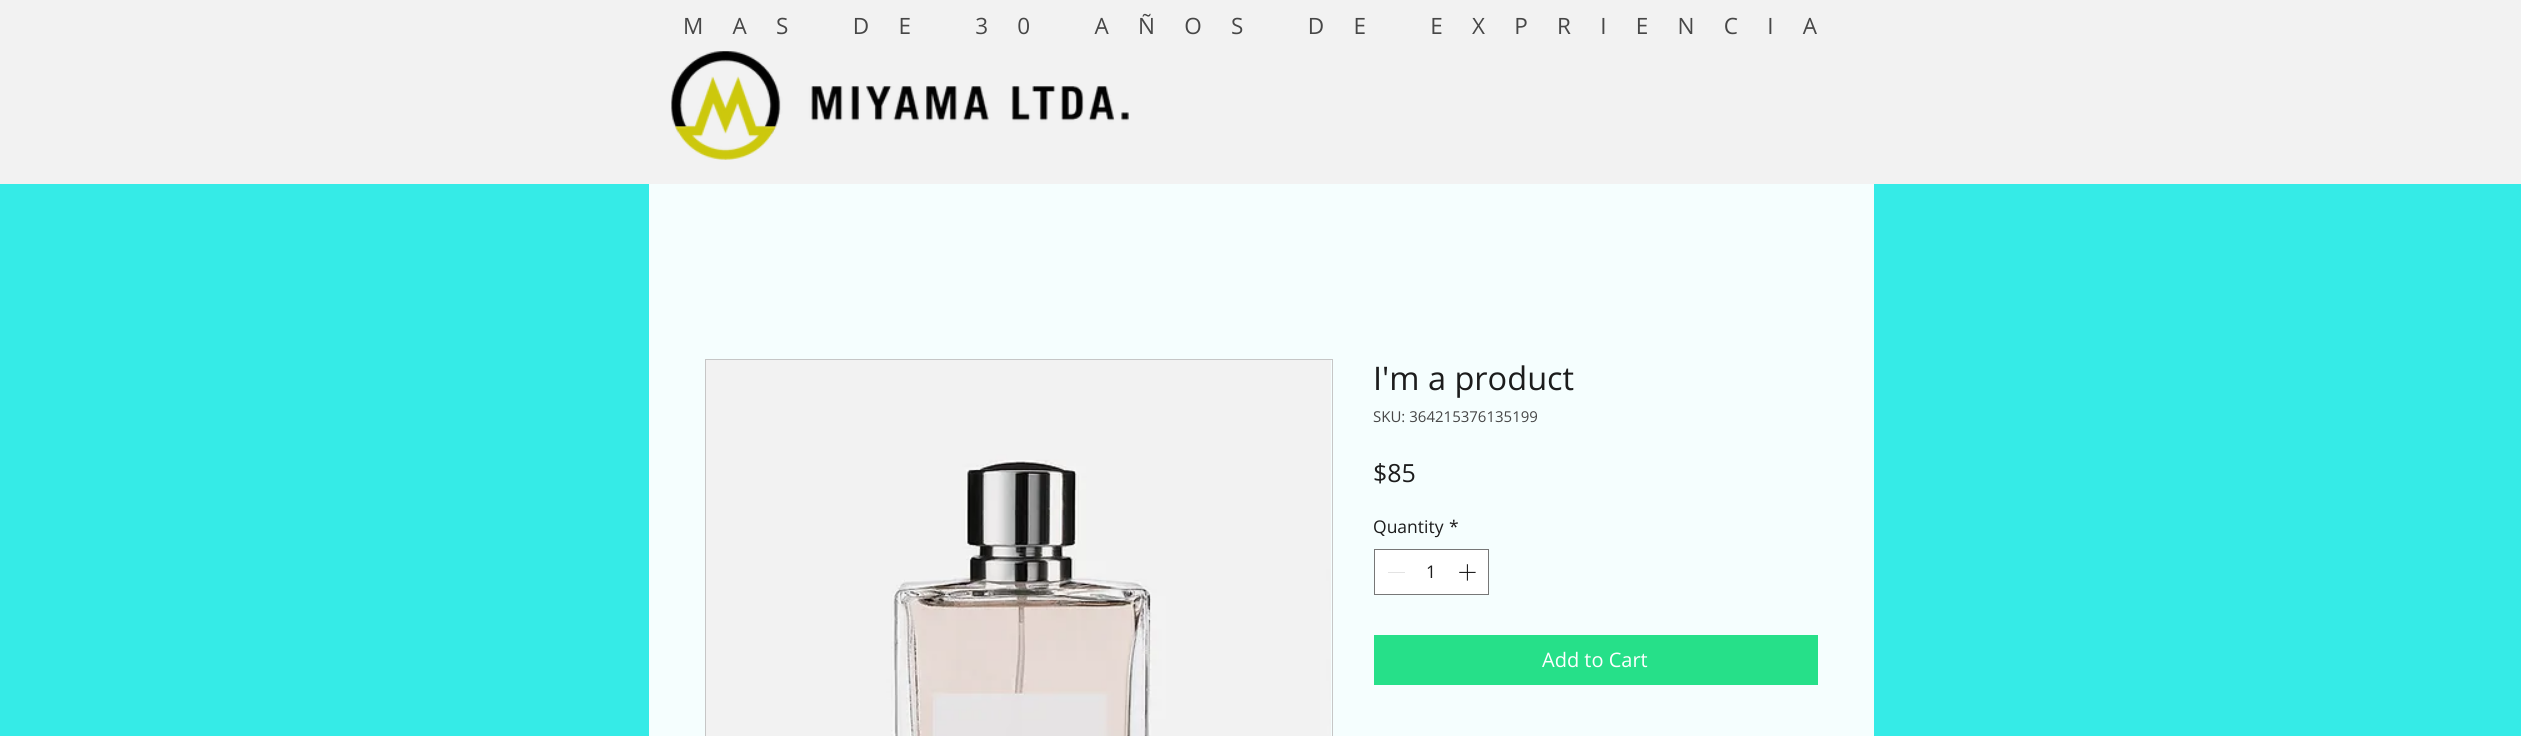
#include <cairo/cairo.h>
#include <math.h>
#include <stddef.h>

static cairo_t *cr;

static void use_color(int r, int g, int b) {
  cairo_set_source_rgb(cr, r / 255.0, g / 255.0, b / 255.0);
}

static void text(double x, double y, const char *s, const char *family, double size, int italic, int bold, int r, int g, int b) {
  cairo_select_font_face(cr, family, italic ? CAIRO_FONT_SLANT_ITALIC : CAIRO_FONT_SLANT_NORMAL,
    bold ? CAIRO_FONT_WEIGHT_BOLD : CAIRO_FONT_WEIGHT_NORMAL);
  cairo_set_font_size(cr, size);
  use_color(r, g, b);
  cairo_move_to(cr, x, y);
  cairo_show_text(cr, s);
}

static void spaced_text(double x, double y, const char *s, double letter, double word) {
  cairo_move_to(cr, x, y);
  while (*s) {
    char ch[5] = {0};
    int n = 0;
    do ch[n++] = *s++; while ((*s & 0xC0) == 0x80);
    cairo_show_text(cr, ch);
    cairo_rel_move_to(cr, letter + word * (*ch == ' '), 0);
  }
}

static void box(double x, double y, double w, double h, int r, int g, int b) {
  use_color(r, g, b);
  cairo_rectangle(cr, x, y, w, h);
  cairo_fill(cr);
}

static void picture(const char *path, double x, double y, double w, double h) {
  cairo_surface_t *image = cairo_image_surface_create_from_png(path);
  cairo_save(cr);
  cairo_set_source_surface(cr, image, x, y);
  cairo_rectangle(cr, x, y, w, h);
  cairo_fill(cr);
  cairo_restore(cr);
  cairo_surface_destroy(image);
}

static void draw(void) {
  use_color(53, 235, 231);
  cairo_paint(cr);
  box(0, 0, 2521, 184, 242, 242, 242);
  picture("img_01.png", 671, 51, 458, 109);
  box(649, 184, 1225, 552, 245, 254, 254);
  cairo_rectangle(cr, 705.5, 359.5, 627, 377);
  use_color(198, 198, 198);
  cairo_set_line_width(cr, 1);
  cairo_stroke(cr);
  picture("img_02.png", 706, 360, 625, 376);
  use_color(255, 255, 255);
  cairo_rectangle(cr, 1374.5, 549.5, 114, 45);
  cairo_fill_preserve(cr);
  use_color(119, 119, 119);
  cairo_stroke(cr);
  box(1388, 572, 17, 1, 227, 227, 227);
  picture("img_03.png", 1459, 564, 17, 17);
  box(1374, 635, 444, 50, 38, 224, 137);
  cairo_select_font_face(cr, "Open Sans", CAIRO_FONT_SLANT_NORMAL, CAIRO_FONT_WEIGHT_NORMAL);
  cairo_set_font_size(cr, 22.5);
  use_color(71, 71, 71);
  spaced_text(683, 34, "MAS DE 30 AÑOS DE EXPRIENCIA", 29.25, 0);
  text(1373, 390, "I'm a product", "Open Sans", 32.5, 0, 0, 28, 28, 28);
  text(1373, 422, "SKU: 364215376135199", "Open Sans", 15, 0, 0, 71, 71, 71);
  text(1373, 482, "$85", "Open Sans", 25, 0, 0, 28, 28, 28);
  text(1373, 533, "Quantity", "Open Sans", 17.5, 0, 0, 28, 28, 28);
  text(1449, 533, "*", "Open Sans", 17.5, 0, 0, 28, 28, 28);
  text(1426, 578, "1", "Open Sans", 17.5, 0, 0, 28, 28, 28);
  text(1542, 667, "Add to Cart", "Open Sans", 20, 0, 0, 255, 255, 255);
}

int main(void) {
  cairo_surface_t *surface = cairo_image_surface_create(CAIRO_FORMAT_RGB24, 2521, 736);
  cr = cairo_create(surface);
  cairo_font_options_t *options = cairo_font_options_create();
  cairo_font_options_set_hint_metrics(options, CAIRO_HINT_METRICS_OFF);
  cairo_font_options_set_hint_style(options, CAIRO_HINT_STYLE_NONE);
  cairo_set_font_options(cr, options);
  cairo_set_miter_limit(cr, 4);
  draw();
  cairo_surface_write_to_png(surface, "out.png");
  cairo_font_options_destroy(options);
  cairo_destroy(cr);
  cairo_surface_destroy(surface);
  return 0;
}
